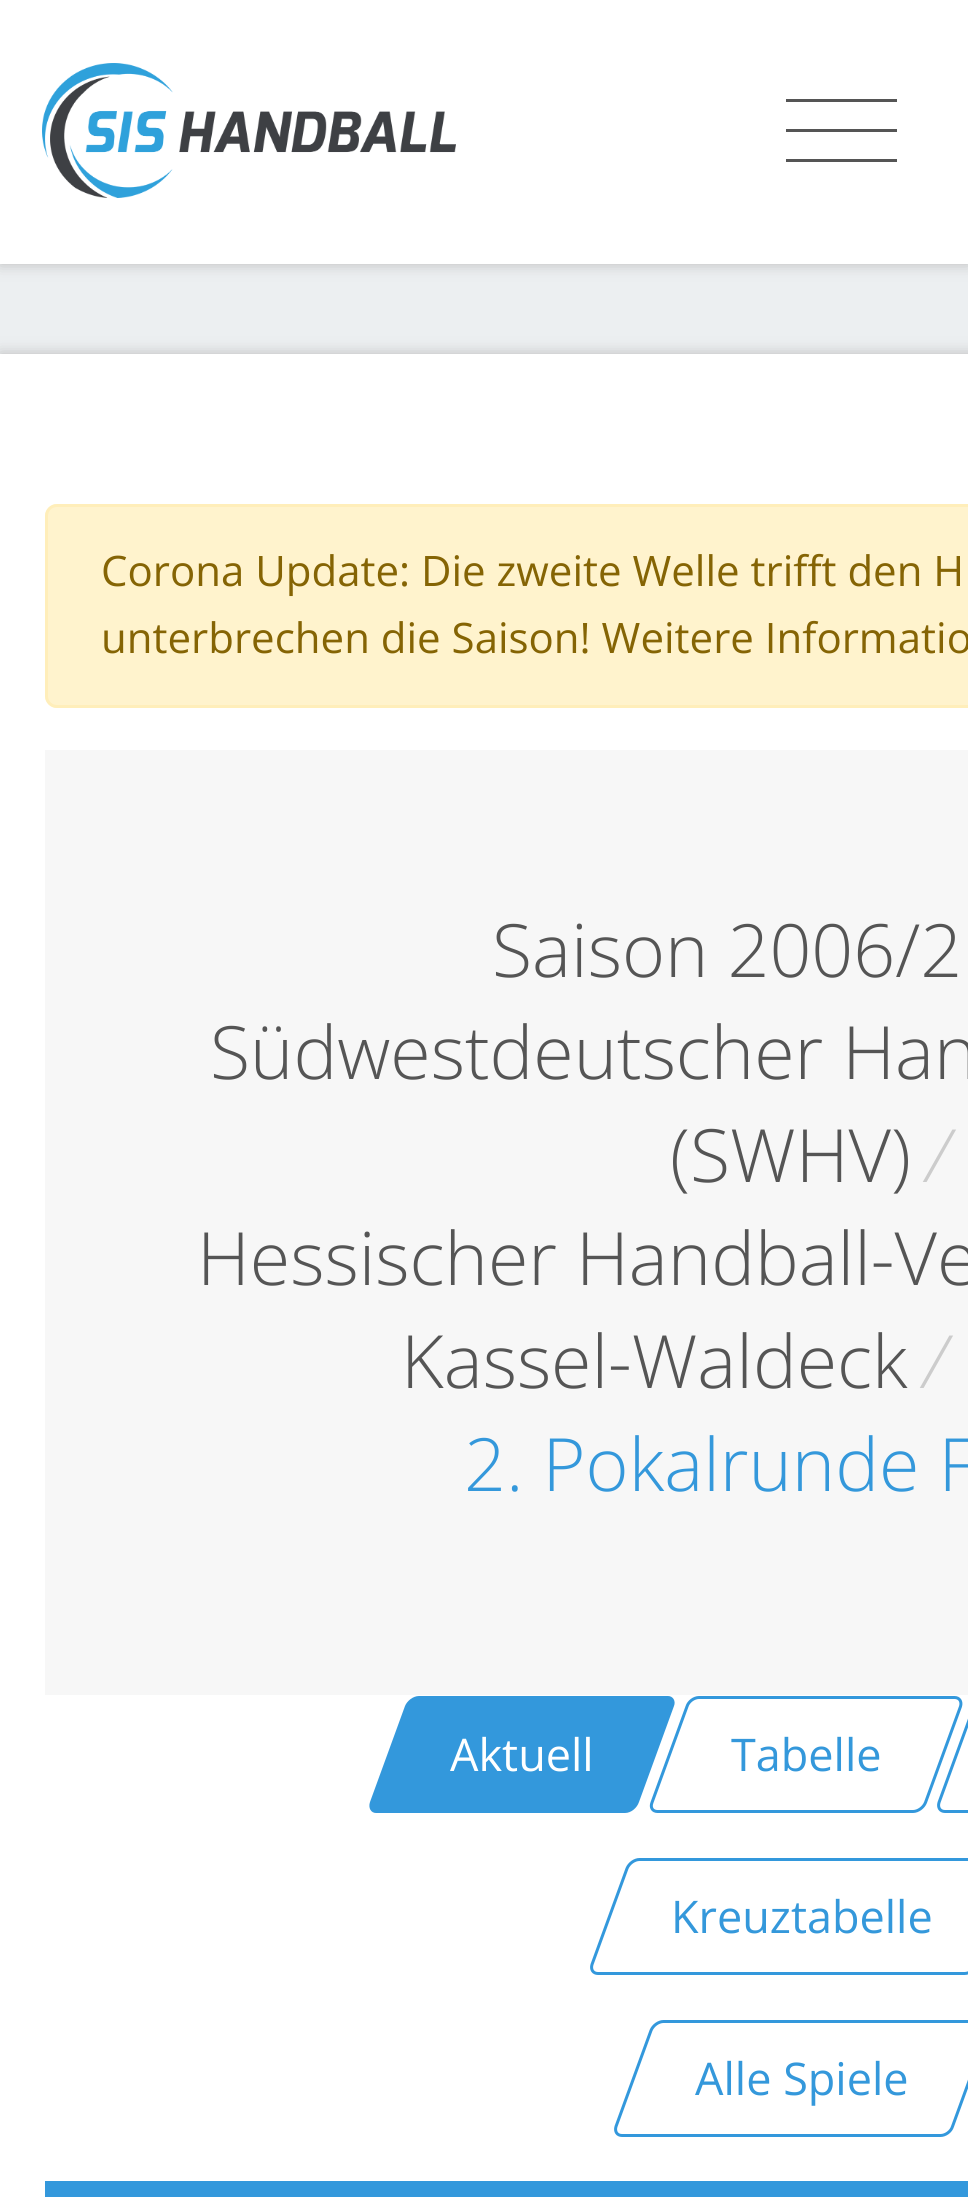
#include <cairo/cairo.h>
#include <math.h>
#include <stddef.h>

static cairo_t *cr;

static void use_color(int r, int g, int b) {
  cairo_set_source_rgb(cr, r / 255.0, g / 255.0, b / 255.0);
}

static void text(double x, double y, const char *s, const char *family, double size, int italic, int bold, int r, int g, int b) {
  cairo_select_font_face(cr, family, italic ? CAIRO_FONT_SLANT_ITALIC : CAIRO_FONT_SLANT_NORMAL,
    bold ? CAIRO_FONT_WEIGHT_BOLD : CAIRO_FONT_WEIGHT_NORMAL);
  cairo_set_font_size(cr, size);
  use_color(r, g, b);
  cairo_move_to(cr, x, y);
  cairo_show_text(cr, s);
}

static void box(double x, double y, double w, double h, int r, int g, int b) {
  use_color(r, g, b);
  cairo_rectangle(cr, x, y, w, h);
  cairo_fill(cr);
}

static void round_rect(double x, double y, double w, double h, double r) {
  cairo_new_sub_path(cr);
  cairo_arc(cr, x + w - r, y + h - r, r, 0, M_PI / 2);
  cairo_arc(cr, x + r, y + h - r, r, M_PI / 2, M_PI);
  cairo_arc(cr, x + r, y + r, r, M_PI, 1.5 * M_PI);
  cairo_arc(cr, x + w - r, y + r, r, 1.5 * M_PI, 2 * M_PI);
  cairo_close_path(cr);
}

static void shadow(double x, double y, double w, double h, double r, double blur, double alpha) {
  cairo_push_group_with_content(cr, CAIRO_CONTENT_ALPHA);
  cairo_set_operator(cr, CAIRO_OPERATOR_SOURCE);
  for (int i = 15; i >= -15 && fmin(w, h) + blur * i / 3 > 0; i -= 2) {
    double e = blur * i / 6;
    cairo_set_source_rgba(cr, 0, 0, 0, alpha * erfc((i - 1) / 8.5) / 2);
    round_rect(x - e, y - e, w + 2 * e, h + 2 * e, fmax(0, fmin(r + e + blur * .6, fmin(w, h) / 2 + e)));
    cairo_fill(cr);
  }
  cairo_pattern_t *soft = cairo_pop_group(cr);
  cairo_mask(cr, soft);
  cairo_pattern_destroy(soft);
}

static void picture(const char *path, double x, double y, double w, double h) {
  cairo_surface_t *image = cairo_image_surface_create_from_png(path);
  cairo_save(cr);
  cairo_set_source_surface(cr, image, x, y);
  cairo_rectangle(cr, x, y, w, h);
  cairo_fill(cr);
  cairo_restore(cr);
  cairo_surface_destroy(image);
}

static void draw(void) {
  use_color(236, 239, 241);
  cairo_paint(cr);
  use_color(187, 187, 187);
  shadow(0, 0, 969, 264, 0, 7.5, 1);
  box(0, 0, 968, 264, 255, 255, 255);
  picture("img_01.png", 42, 63, 414, 135);
  box(786, 99, 111, 3, 85, 85, 85);
  box(786, 129, 111, 3, 85, 85, 85);
  box(786, 159, 111, 3, 85, 85, 85);
  use_color(187, 187, 187);
  shadow(0, 354, 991, 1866, 0, 7.5, 1);
  box(0, 354, 968, 1843, 255, 255, 255);
  use_color(255, 243, 205);
  cairo_new_path(cr);
  cairo_move_to(cr, 57, 504);
  cairo_line_to(cr, 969, 504);
  cairo_line_to(cr, 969, 708);
  cairo_line_to(cr, 57, 708);
  cairo_curve_to(cr, 50.5, 708, 45, 702.5, 45, 696);
  cairo_line_to(cr, 45, 516);
  cairo_curve_to(cr, 45, 509.5, 50.5, 504, 57, 504);
  cairo_close_path(cr);
  cairo_fill(cr);
  round_rect(46.5, 505.5, 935, 201, 10.5);
  use_color(255, 238, 186);
  cairo_set_line_width(cr, 3);
  cairo_stroke(cr);
  box(45, 750, 923, 945, 247, 247, 247);
  use_color(51, 152, 220);
  cairo_new_path(cr);
  cairo_move_to(cr, 419, 1696);
  cairo_line_to(cr, 668, 1696);
  cairo_curve_to(cr, 673, 1696, 676, 1701, 674, 1706);
  cairo_line_to(cr, 639, 1802);
  cairo_curve_to(cr, 637, 1808, 631, 1813, 625, 1813);
  cairo_line_to(cr, 376, 1813);
  cairo_curve_to(cr, 371, 1813, 368, 1808, 370, 1802);
  cairo_line_to(cr, 405, 1706);
  cairo_curve_to(cr, 407, 1701, 413, 1696, 419, 1696);
  cairo_close_path(cr);
  cairo_fill(cr);
  cairo_new_path(cr);
  cairo_move_to(cr, 699, 1697.5);
  cairo_line_to(cr, 954.5, 1697.5);
  cairo_curve_to(cr, 959.5, 1697.5, 962, 1701.5, 960.5, 1706.5);
  cairo_line_to(cr, 925.5, 1802.5);
  cairo_curve_to(cr, 923.5, 1807.5, 918, 1811.5, 913, 1811.5);
  cairo_line_to(cr, 657.5, 1811.5);
  cairo_curve_to(cr, 652.5, 1811.5, 650, 1807.5, 652, 1802.5);
  cairo_line_to(cr, 687, 1706.5);
  cairo_curve_to(cr, 688.5, 1701.5, 694, 1697.5, 699, 1697.5);
  cairo_close_path(cr);
  cairo_stroke(cr);
  cairo_new_path(cr);
  cairo_move_to(cr, 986.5, 1697.5);
  cairo_line_to(cr, 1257, 1697.5);
  cairo_curve_to(cr, 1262, 1697.5, 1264.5, 1701.5, 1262.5, 1706.5);
  cairo_line_to(cr, 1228, 1802.5);
  cairo_curve_to(cr, 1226, 1807.5, 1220.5, 1811.5, 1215.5, 1811.5);
  cairo_line_to(cr, 945, 1811.5);
  cairo_curve_to(cr, 940, 1811.5, 937.5, 1807.5, 939, 1802.5);
  cairo_line_to(cr, 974, 1706.5);
  cairo_curve_to(cr, 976, 1701.5, 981.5, 1697.5, 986.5, 1697.5);
  cairo_close_path(cr);
  cairo_stroke(cr);
  cairo_new_path(cr);
  cairo_move_to(cr, 639.5, 1859.5);
  cairo_line_to(cr, 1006, 1859.5);
  cairo_curve_to(cr, 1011, 1859.5, 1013.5, 1863.5, 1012, 1868.5);
  cairo_line_to(cr, 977, 1964.5);
  cairo_curve_to(cr, 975, 1969.5, 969.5, 1973.5, 964.5, 1973.5);
  cairo_line_to(cr, 598, 1973.5);
  cairo_curve_to(cr, 593, 1973.5, 590.5, 1969.5, 592, 1964.5);
  cairo_line_to(cr, 627, 1868.5);
  cairo_curve_to(cr, 629, 1863.5, 634.5, 1859.5, 639.5, 1859.5);
  cairo_close_path(cr);
  cairo_stroke(cr);
  cairo_new_path(cr);
  cairo_move_to(cr, 663.5, 2021.5);
  cairo_line_to(cr, 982, 2021.5);
  cairo_curve_to(cr, 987, 2021.5, 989.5, 2025.5, 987.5, 2030.5);
  cairo_line_to(cr, 952.5, 2126.5);
  cairo_curve_to(cr, 951, 2131.5, 945.5, 2135.5, 940.5, 2135.5);
  cairo_line_to(cr, 622, 2135.5);
  cairo_curve_to(cr, 617, 2135.5, 614.5, 2131.5, 616, 2126.5);
  cairo_line_to(cr, 651, 2030.5);
  cairo_curve_to(cr, 653, 2025.5, 658.5, 2021.5, 663.5, 2021.5);
  cairo_close_path(cr);
  cairo_stroke(cr);
  cairo_rectangle(cr, 46.5, 2182.5, 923, 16);
  cairo_stroke(cr);
  box(48, 2184, 920, 13, 51, 152, 220);
  text(101, 586, "Corona Update: Die zweite Welle trifft den H", "Open Sans", 42, 0, 0, 133, 100, 4);
  text(101, 653, "unterbrechen die Saison! Weitere Informatio", "Open Sans", 42, 0, 0, 133, 100, 4);
  text(492, 977, "Saison 2006/2", "Open Sans Light", 73.5, 0, 0, 85, 85, 85);
  text(210, 1079, "Südwestdeutscher Han", "Open Sans Light", 73.5, 0, 0, 85, 85, 85);
  text(670, 1182, "(SWHV)", "Open Sans Light", 73.5, 0, 0, 85, 85, 85);
  text(926, 1182, "/", "Open Sans Light", 73.5, 1, 0, 204, 204, 204);
  text(197, 1285, "Hessischer Handball-Ve", "Open Sans Light", 73.5, 0, 0, 85, 85, 85);
  text(401, 1388, "Kassel-Waldeck", "Open Sans Light", 73.5, 0, 0, 85, 85, 85);
  text(923, 1388, "/", "Open Sans Light", 73.5, 1, 0, 204, 204, 204);
  text(464, 1491, "2. Pokalrunde F", "Open Sans Light", 73.5, 0, 0, 52, 152, 219);
  text(450, 1771, "Aktuell", "Open Sans", 45, 0, 0, 255, 255, 255);
  text(731, 1771, "Tabelle", "Open Sans", 45, 0, 0, 52, 152, 219);
  text(671, 1933, "Kreuztabelle", "Open Sans", 45, 0, 0, 52, 152, 219);
  text(695, 2095, "Alle Spiele", "Open Sans", 45, 0, 0, 52, 152, 219);
}

int main(void) {
  cairo_surface_t *surface = cairo_image_surface_create(CAIRO_FORMAT_RGB24, 968, 2197);
  cr = cairo_create(surface);
  cairo_font_options_t *options = cairo_font_options_create();
  cairo_font_options_set_hint_metrics(options, CAIRO_HINT_METRICS_OFF);
  cairo_font_options_set_hint_style(options, CAIRO_HINT_STYLE_NONE);
  cairo_set_font_options(cr, options);
  cairo_set_miter_limit(cr, 4);
  draw();
  cairo_surface_write_to_png(surface, "out.png");
  cairo_font_options_destroy(options);
  cairo_destroy(cr);
  cairo_surface_destroy(surface);
  return 0;
}
